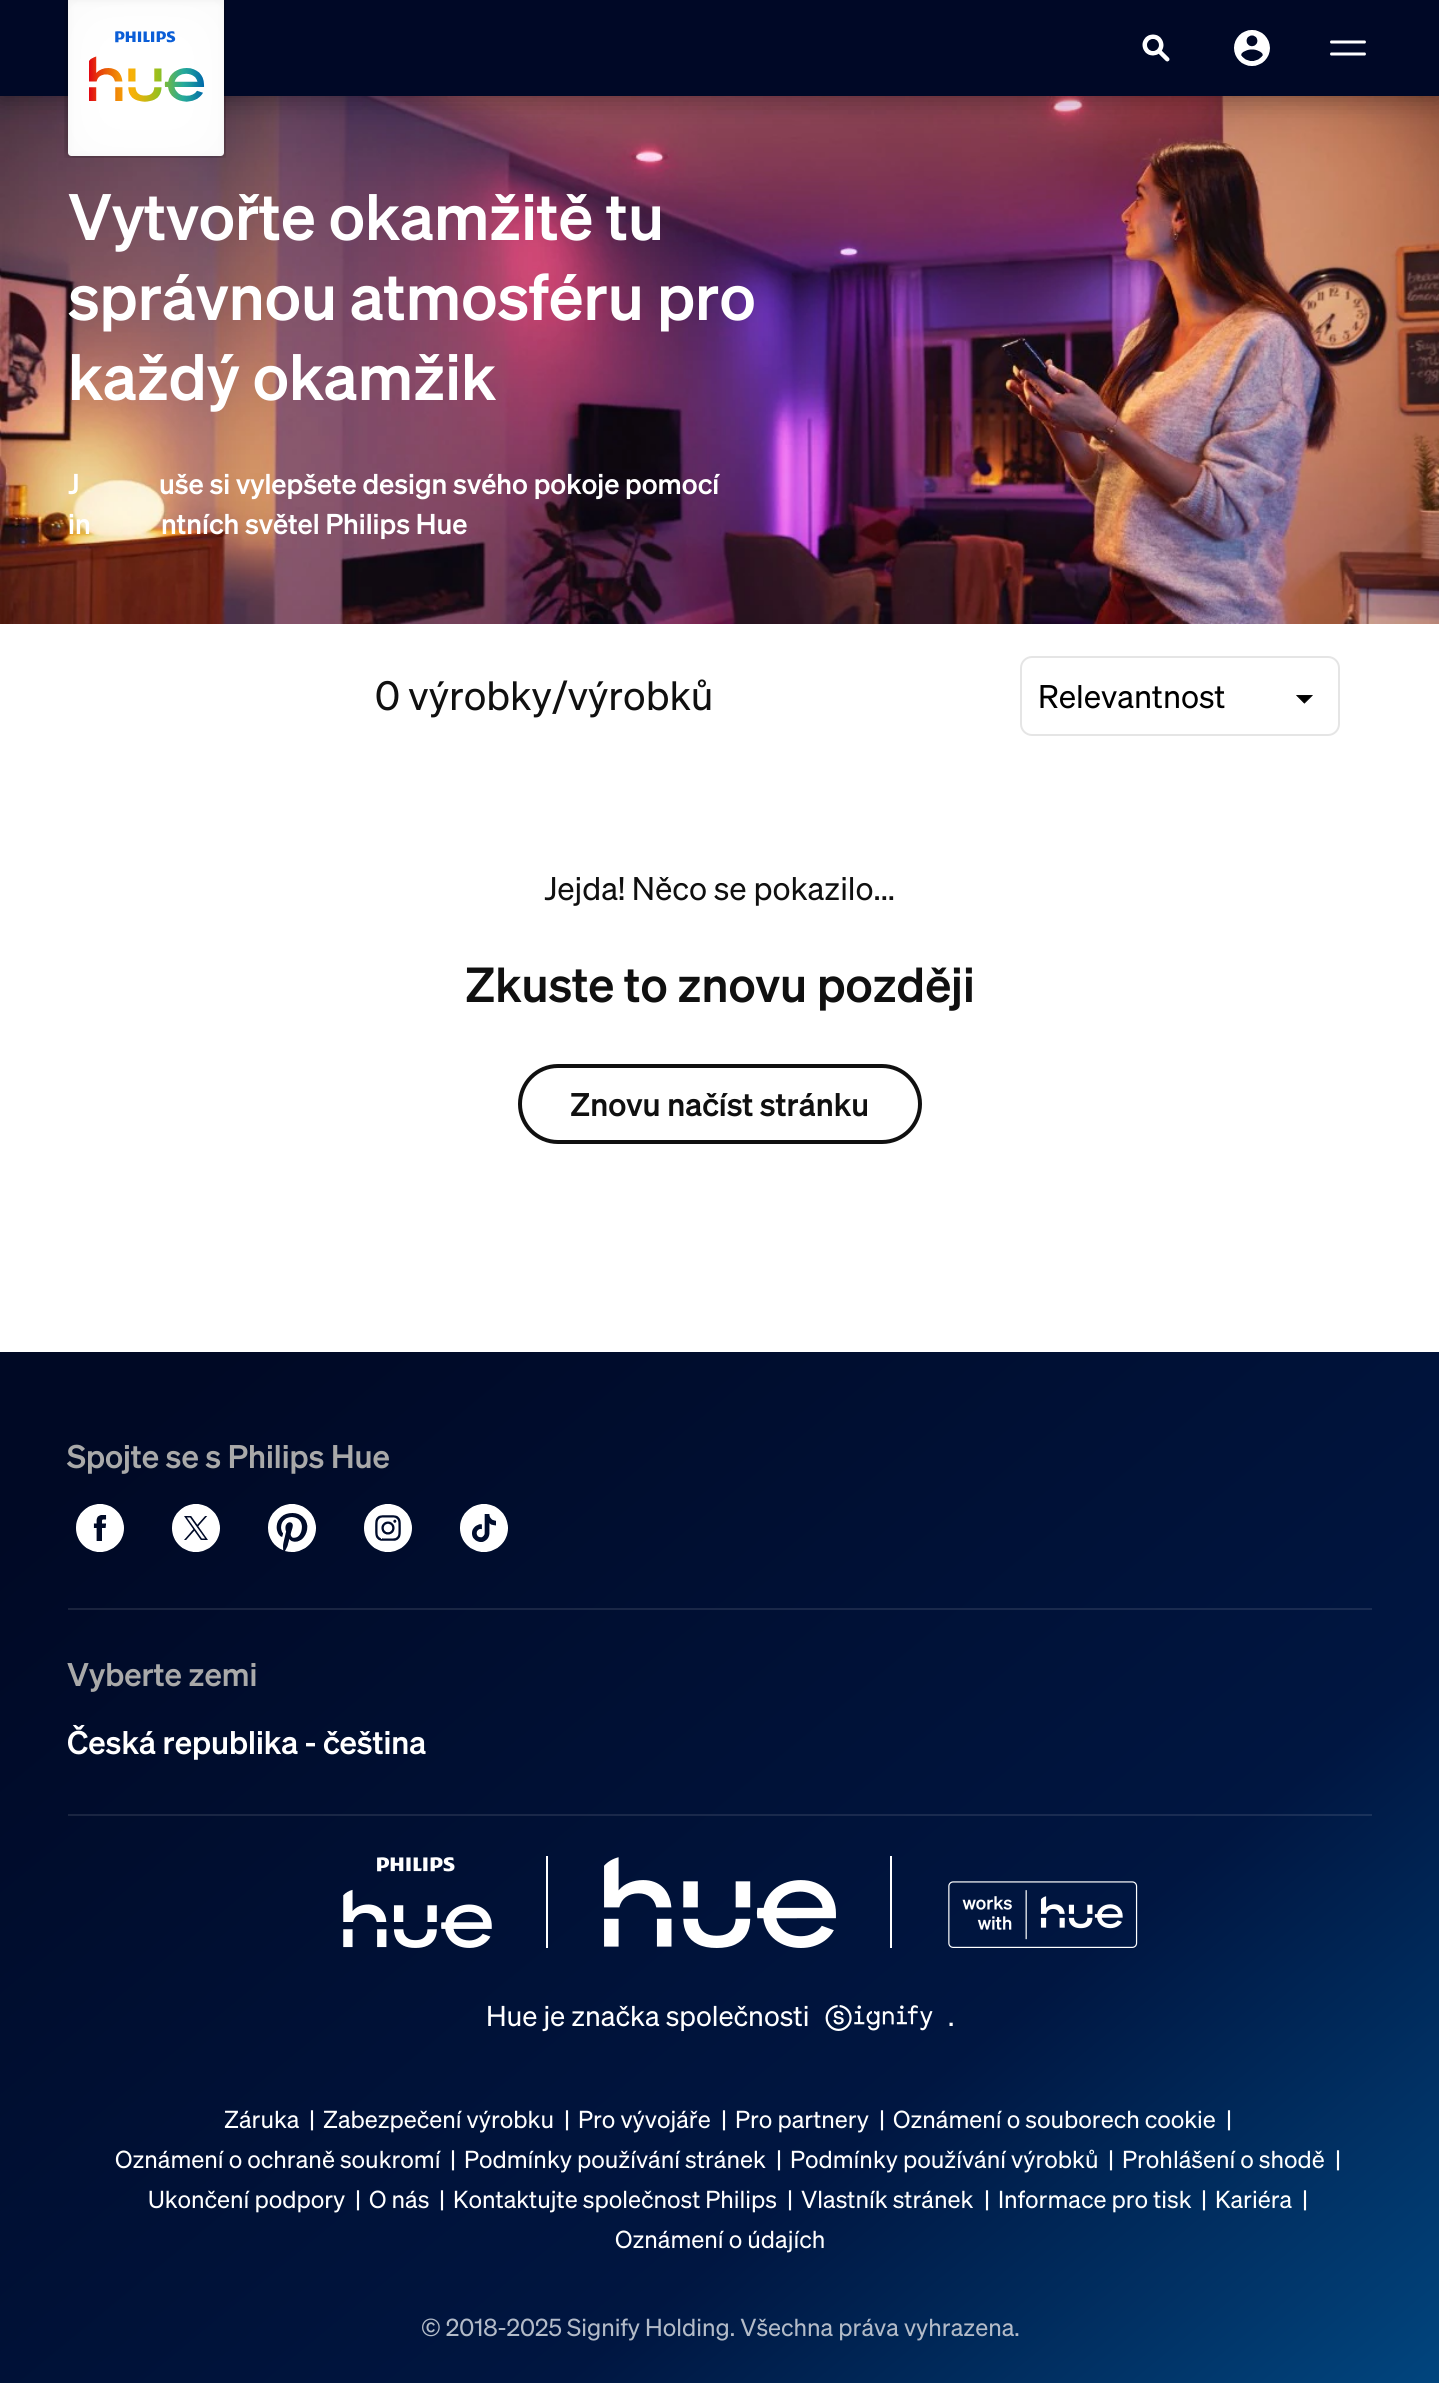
#include <cairo/cairo.h>
#include <math.h>
#include <stddef.h>

static cairo_t *cr;

static void use_color(int r, int g, int b) {
  cairo_set_source_rgb(cr, r / 255.0, g / 255.0, b / 255.0);
}

static void text(double x, double y, const char *s, const char *family, double size, int italic, int bold, int r, int g, int b) {
  cairo_select_font_face(cr, family, italic ? CAIRO_FONT_SLANT_ITALIC : CAIRO_FONT_SLANT_NORMAL,
    bold ? CAIRO_FONT_WEIGHT_BOLD : CAIRO_FONT_WEIGHT_NORMAL);
  cairo_set_font_size(cr, size);
  use_color(r, g, b);
  cairo_move_to(cr, x, y);
  cairo_show_text(cr, s);
}

static void box(double x, double y, double w, double h, int r, int g, int b) {
  use_color(r, g, b);
  cairo_rectangle(cr, x, y, w, h);
  cairo_fill(cr);
}

static void round_rect(double x, double y, double w, double h, double r) {
  cairo_new_sub_path(cr);
  cairo_arc(cr, x + w - r, y + h - r, r, 0, M_PI / 2);
  cairo_arc(cr, x + r, y + h - r, r, M_PI / 2, M_PI);
  cairo_arc(cr, x + r, y + r, r, M_PI, 1.5 * M_PI);
  cairo_arc(cr, x + w - r, y + r, r, 1.5 * M_PI, 2 * M_PI);
  cairo_close_path(cr);
}

static void shadow(double x, double y, double w, double h, double r, double blur, double alpha) {
  cairo_push_group_with_content(cr, CAIRO_CONTENT_ALPHA);
  cairo_set_operator(cr, CAIRO_OPERATOR_SOURCE);
  for (int i = 15; i >= -15 && fmin(w, h) + blur * i / 3 > 0; i -= 2) {
    double e = blur * i / 6;
    cairo_set_source_rgba(cr, 0, 0, 0, alpha * erfc((i - 1) / 8.5) / 2);
    round_rect(x - e, y - e, w + 2 * e, h + 2 * e, fmax(0, fmin(r + e + blur * .6, fmin(w, h) / 2 + e)));
    cairo_fill(cr);
  }
  cairo_pattern_t *soft = cairo_pop_group(cr);
  cairo_mask(cr, soft);
  cairo_pattern_destroy(soft);
}

static void picture(const char *path, double x, double y, double w, double h) {
  cairo_surface_t *image = cairo_image_surface_create_from_png(path);
  cairo_save(cr);
  cairo_set_source_surface(cr, image, x, y);
  cairo_rectangle(cr, x, y, w, h);
  cairo_fill(cr);
  cairo_restore(cr);
  cairo_surface_destroy(image);
}

static void draw(void) {
  cairo_pattern_t *gradient;
  use_color(255, 255, 255);
  cairo_paint(cr);
  picture("img_05.png", 0, 96, 1439, 528);
  use_color(0, 0, 0);
  shadow(0, 4, 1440, 96, 0, 12, 0.32);
  box(0, 0, 1439, 96, 0, 8, 38);
  picture("img_01.png", 64, 0, 162, 158);
  picture("img_02.png", 1142, 34, 28, 28);
  picture("img_03.png", 1234, 30, 36, 36);
  picture("img_04.png", 1330, 40, 36, 16);
  picture("img_06.png", 1296, 695, 17, 9);
  round_rect(1021, 657, 318, 78, 11);
  use_color(229, 229, 229);
  cairo_stroke(cr);
  round_rect(520, 1066, 400, 76, 38);
  use_color(16, 16, 16);
  cairo_set_line_width(cr, 4);
  cairo_stroke(cr);
  gradient = cairo_pattern_create_linear(1274, 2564, 166, 1216);
  cairo_pattern_add_color_stop_rgba(gradient, 0.02, 0.004, 0.271, 0.494, 1);
  cairo_pattern_add_color_stop_rgba(gradient, 0.34, 0, 0.086, 0.255, 1);
  cairo_pattern_add_color_stop_rgba(gradient, 0.92, 0, 0.035, 0.145, 1);
  cairo_set_source(cr, gradient);
  cairo_pattern_destroy(gradient);
  cairo_rectangle(cr, 0, 1352, 1439, 1031);
  cairo_fill(cr);
  gradient = cairo_pattern_create_linear(1274, 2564, 166, 1216);
  cairo_pattern_add_color_stop_rgba(gradient, 0.02, 0.102, 0.345, 0.545, 1);
  cairo_pattern_add_color_stop_rgba(gradient, 0.34, 0.102, 0.176, 0.329, 1);
  cairo_pattern_add_color_stop_rgba(gradient, 0.92, 0.102, 0.133, 0.231, 1);
  cairo_set_source(cr, gradient);
  cairo_pattern_destroy(gradient);
  cairo_rectangle(cr, 68, 1814, 1304, 2);
  cairo_fill(cr);
  cairo_rectangle(cr, 68, 1608, 1304, 2);
  cairo_fill(cr);
  picture("img_07.png", 76, 1504, 48, 48);
  picture("img_08.png", 172, 1504, 48, 48);
  picture("img_09.png", 268, 1504, 48, 48);
  picture("img_10.png", 364, 1504, 48, 48);
  picture("img_11.png", 460, 1504, 48, 48);
  picture("img_12.png", 343, 1857, 149, 91);
  box(546, 1856, 2, 92, 255, 255, 255);
  picture("img_13.png", 604, 1857, 232, 91);
  box(890, 1856, 2, 92, 255, 255, 255);
  picture("img_14.png", 948, 1881, 190, 67);
  picture("img_15.png", 825, 2005, 108, 26);
  text(68, 240, "Vytvořte okamžitě tu", "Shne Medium", 64, 0, 0, 255, 255, 255);
  text(68, 320, "správnou atmosféru pro", "Shne Medium", 64, 0, 0, 255, 255, 255);
  text(68, 400, "každý okamžik", "Shne Medium", 64, 0, 0, 255, 255, 255);
  text(68, 494, "J", "Shne Medium", 28, 0, 0, 255, 255, 255);
  text(159, 494, "uše si vylepšete design svého pokoje pomocí", "Shne Medium", 28, 0, 0, 255, 255, 255);
  text(68, 534, "in", "Shne Medium", 28, 0, 0, 255, 255, 255);
  text(161, 534, "ntních světel Philips Hue", "Shne Medium", 28, 0, 0, 255, 255, 255);
  text(375, 710, "0 výrobky/výrobků", "Shne", 40, 0, 0, 16, 16, 16);
  text(1038, 708, "Relevantnost", "Shne", 32, 0, 0, 0, 0, 0);
  text(544, 900, "Jejda! Něco se pokazilo...", "Shne", 32, 0, 0, 16, 16, 16);
  text(465, 1002, "Zkuste to znovu později", "Shne Medium", 48, 0, 0, 16, 16, 16);
  text(570, 1116, "Znovu načíst stránku", "Shne Medium", 32, 0, 0, 16, 16, 16);
  text(67, 1468, "Spojte se s Philips Hue", "Shne Medium", 32, 0, 0, 169, 169, 169);
  text(67, 1686, "Vyberte zemi", "Shne Medium", 32, 0, 0, 169, 169, 169);
  text(67, 1754, "Česká republika - čeština", "Shne Medium", 32, 0, 0, 255, 255, 255);
  text(486, 2026, "Hue je značka společnosti", "Shne", 28, 0, 0, 255, 255, 255);
  text(948, 2026, ".", "Shne", 28, 0, 0, 255, 255, 255);
  text(224, 2128, "Záruka", "Shne", 24, 0, 0, 255, 255, 255);
  text(309, 2128, "|", "Shne", 24, 0, 0, 255, 255, 255);
  text(323, 2128, "Zabezpečení výrobku", "Shne", 24, 0, 0, 255, 255, 255);
  text(564, 2128, "|", "Shne", 24, 0, 0, 255, 255, 255);
  text(578, 2128, "Pro vývojáře", "Shne", 24, 0, 0, 255, 255, 255);
  text(721, 2128, "|", "Shne", 24, 0, 0, 255, 255, 255);
  text(735, 2128, "Pro partnery", "Shne", 24, 0, 0, 255, 255, 255);
  text(879, 2128, "|", "Shne", 24, 0, 0, 255, 255, 255);
  text(893, 2128, "Oznámení o souborech cookie", "Shne", 24, 0, 0, 255, 255, 255);
  text(1226, 2128, "|", "Shne", 24, 0, 0, 255, 255, 255);
  text(115, 2168, "Oznámení o ochraně soukromí", "Shne", 24, 0, 0, 255, 255, 255);
  text(450, 2168, "|", "Shne", 24, 0, 0, 255, 255, 255);
  text(464, 2168, "Podmínky používání stránek", "Shne", 24, 0, 0, 255, 255, 255);
  text(776, 2168, "|", "Shne", 24, 0, 0, 255, 255, 255);
  text(790, 2168, "Podmínky používání výrobků", "Shne", 24, 0, 0, 255, 255, 255);
  text(1108, 2168, "|", "Shne", 24, 0, 0, 255, 255, 255);
  text(1122, 2168, "Prohlášení o shodě", "Shne", 24, 0, 0, 255, 255, 255);
  text(1335, 2168, "|", "Shne", 24, 0, 0, 255, 255, 255);
  text(148, 2208, "Ukončení podpory", "Shne", 24, 0, 0, 255, 255, 255);
  text(355, 2208, "|", "Shne", 24, 0, 0, 255, 255, 255);
  text(369, 2208, "O nás", "Shne", 24, 0, 0, 255, 255, 255);
  text(439, 2208, "|", "Shne", 24, 0, 0, 255, 255, 255);
  text(453, 2208, "Kontaktujte společnost Philips", "Shne", 24, 0, 0, 255, 255, 255);
  text(787, 2208, "|", "Shne", 24, 0, 0, 255, 255, 255);
  text(801, 2208, "Vlastník stránek", "Shne", 24, 0, 0, 255, 255, 255);
  text(984, 2208, "|", "Shne", 24, 0, 0, 255, 255, 255);
  text(998, 2208, "Informace pro tisk", "Shne", 24, 0, 0, 255, 255, 255);
  text(1201, 2208, "|", "Shne", 24, 0, 0, 255, 255, 255);
  text(1215, 2208, "Kariéra", "Shne", 24, 0, 0, 255, 255, 255);
  text(1302, 2208, "|", "Shne", 24, 0, 0, 255, 255, 255);
  text(615, 2248, "Oznámení o údajích", "Shne", 24, 0, 0, 255, 255, 255);
  text(421, 2336, "© 2018-2025 Signify Holding. Všechna práva vyhrazena.", "Shne", 24, 0, 0, 179, 187, 200);
}

int main(void) {
  cairo_surface_t *surface = cairo_image_surface_create(CAIRO_FORMAT_RGB24, 1439, 2383);
  cr = cairo_create(surface);
  cairo_font_options_t *options = cairo_font_options_create();
  cairo_font_options_set_hint_metrics(options, CAIRO_HINT_METRICS_OFF);
  cairo_font_options_set_hint_style(options, CAIRO_HINT_STYLE_NONE);
  cairo_set_font_options(cr, options);
  cairo_set_miter_limit(cr, 4);
  draw();
  cairo_surface_write_to_png(surface, "out.png");
  cairo_font_options_destroy(options);
  cairo_destroy(cr);
  cairo_surface_destroy(surface);
  return 0;
}
